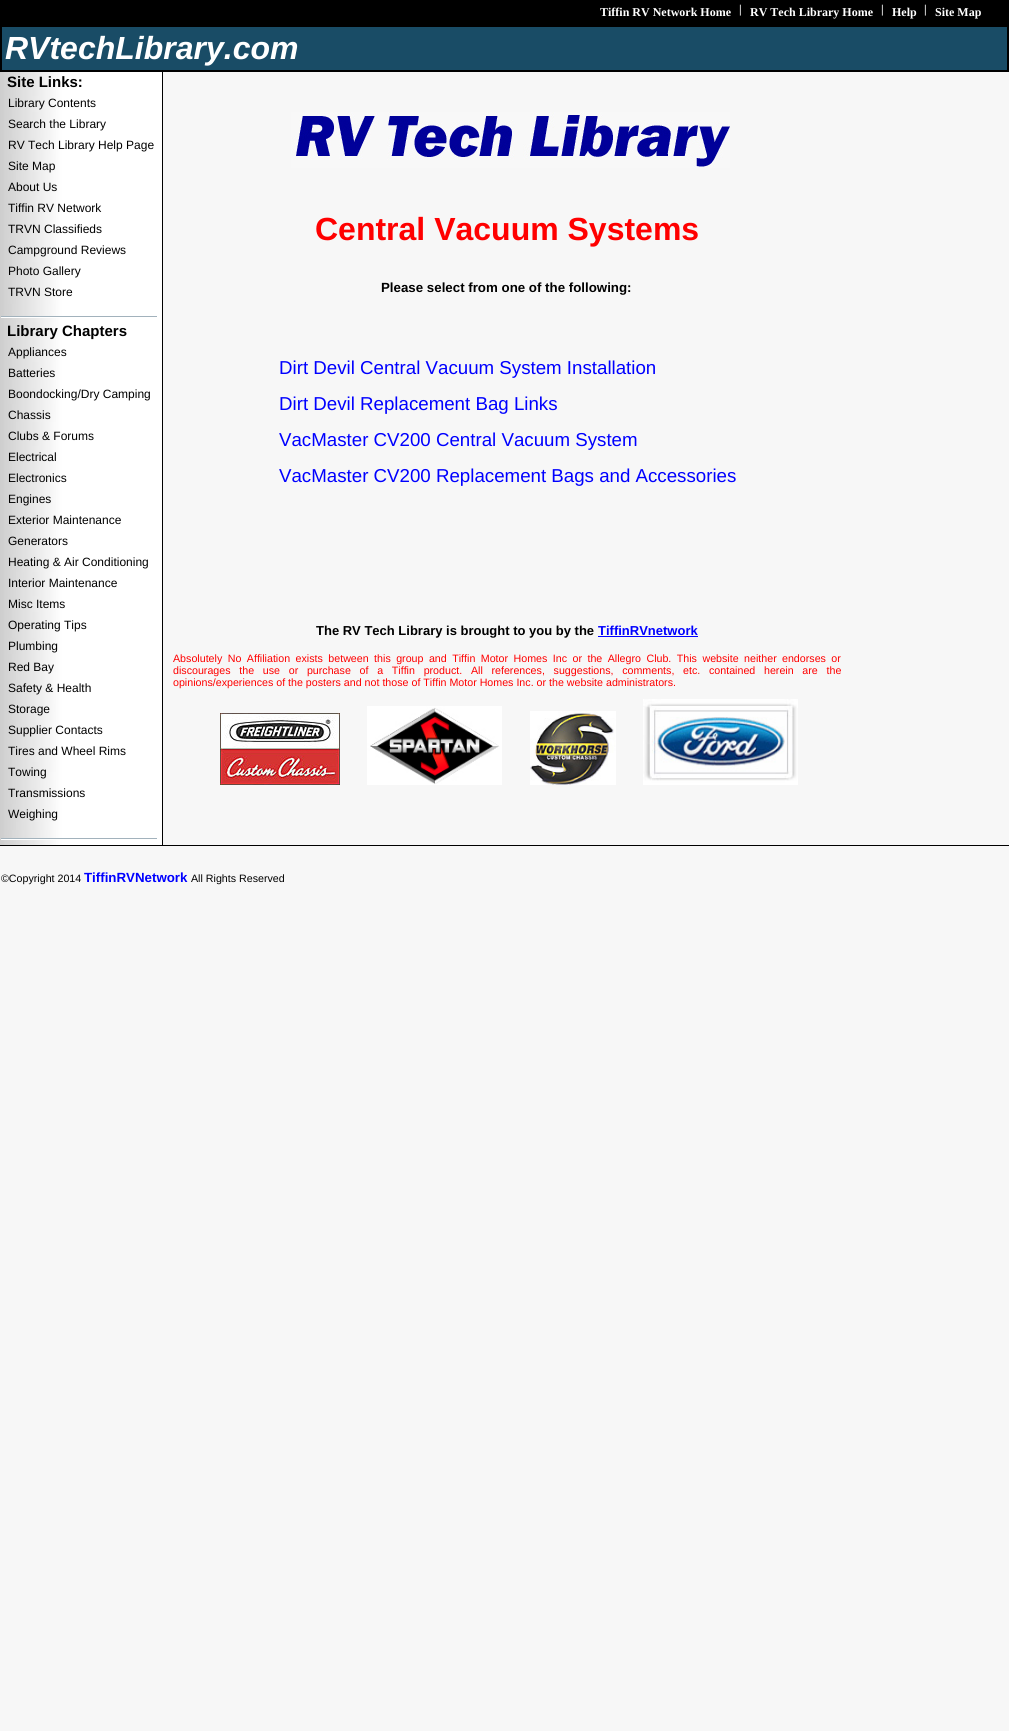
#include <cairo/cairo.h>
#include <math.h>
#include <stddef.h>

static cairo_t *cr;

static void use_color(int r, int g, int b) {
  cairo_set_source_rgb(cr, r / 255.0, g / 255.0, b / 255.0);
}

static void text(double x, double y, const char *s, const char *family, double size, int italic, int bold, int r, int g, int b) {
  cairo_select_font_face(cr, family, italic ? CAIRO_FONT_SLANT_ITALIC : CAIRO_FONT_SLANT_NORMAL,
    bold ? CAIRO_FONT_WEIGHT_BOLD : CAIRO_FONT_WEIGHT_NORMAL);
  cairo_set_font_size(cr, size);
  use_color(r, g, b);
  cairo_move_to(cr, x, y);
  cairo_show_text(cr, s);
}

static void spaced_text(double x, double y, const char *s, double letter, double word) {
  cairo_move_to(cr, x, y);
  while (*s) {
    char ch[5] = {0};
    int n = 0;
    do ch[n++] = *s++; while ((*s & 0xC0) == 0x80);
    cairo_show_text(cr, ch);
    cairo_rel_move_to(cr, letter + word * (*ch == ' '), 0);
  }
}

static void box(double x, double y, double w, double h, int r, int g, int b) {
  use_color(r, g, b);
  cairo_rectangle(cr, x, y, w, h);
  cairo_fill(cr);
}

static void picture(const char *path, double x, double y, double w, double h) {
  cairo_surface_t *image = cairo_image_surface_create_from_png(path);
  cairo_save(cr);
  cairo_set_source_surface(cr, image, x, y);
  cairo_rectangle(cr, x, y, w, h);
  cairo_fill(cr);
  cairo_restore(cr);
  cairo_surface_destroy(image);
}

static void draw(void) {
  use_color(247, 247, 247);
  cairo_paint(cr);
  box(2, 27, 1005, 43, 25, 76, 102);
  box(0, 0, 1009, 27, 0, 0, 0);
  box(1007, 25, 2, 47, 0, 0, 0);
  box(0, 70, 1009, 2, 0, 0, 0);
  box(0, 25, 2, 47, 0, 0, 0);
  picture("img_01.png", 0, 72, 162, 773);
  box(162, 72, 1, 774, 0, 0, 0);
  picture("img_02.png", 1, 316, 156, 2);
  picture("img_02.png", 1, 838, 156, 2);
  picture("img_03.png", 291, 112, 439, 56);
  box(598, 636, 100, 1, 0, 0, 255);
  picture("img_04.png", 220, 713, 120, 72);
  picture("img_05.png", 367, 706, 135, 79);
  picture("img_06.png", 530, 711, 86, 74);
  picture("img_07.png", 643, 699, 155, 86);
  box(0, 845, 1009, 1, 0, 0, 0);
  text(600, 16, "Tiffin RV Network Home", "Liberation Serif", 12, 0, 1, 255, 255, 255);
  text(739, 13, "|", "Liberation Serif", 12, 0, 1, 255, 255, 255);
  text(750, 16, "RV Tech Library Home", "Liberation Serif", 12, 0, 1, 255, 255, 255);
  text(881, 13, "|", "Liberation Serif", 12, 0, 1, 255, 255, 255);
  text(892, 16, "Help", "Liberation Serif", 12, 0, 1, 255, 255, 255);
  text(924, 13, "|", "Liberation Serif", 12, 0, 1, 255, 255, 255);
  text(935, 16, "Site Map", "Liberation Serif", 12, 0, 1, 255, 255, 255);
  text(5, 59, "RVtechLibrary.com", "Liberation Sans", 32, 1, 1, 255, 255, 255);
  text(7, 87, "Site Links:", "Liberation Sans", 15, 0, 1, 0, 0, 0);
  text(8, 107, "Library Contents", "Liberation Sans", 12, 0, 0, 0, 0, 0);
  text(8, 128, "Search the Library", "Liberation Sans", 12, 0, 0, 0, 0, 0);
  text(8, 149, "RV Tech Library Help Page", "Liberation Sans", 12, 0, 0, 0, 0, 0);
  text(8, 170, "Site Map", "Liberation Sans", 12, 0, 0, 0, 0, 0);
  text(8, 191, "About Us", "Liberation Sans", 12, 0, 0, 0, 0, 0);
  text(8, 212, "Tiffin RV Network", "Liberation Sans", 12, 0, 0, 0, 0, 0);
  text(8, 233, "TRVN Classifieds", "Liberation Sans", 12, 0, 0, 0, 0, 0);
  text(8, 254, "Campground Reviews", "Liberation Sans", 12, 0, 0, 0, 0, 0);
  text(8, 275, "Photo Gallery", "Liberation Sans", 12, 0, 0, 0, 0, 0);
  text(8, 296, "TRVN Store", "Liberation Sans", 12, 0, 0, 0, 0, 0);
  text(7, 336, "Library Chapters", "Liberation Sans", 15, 0, 1, 0, 0, 0);
  text(8, 356, "Appliances", "Liberation Sans", 12, 0, 0, 0, 0, 0);
  text(8, 377, "Batteries", "Liberation Sans", 12, 0, 0, 0, 0, 0);
  text(8, 398, "Boondocking/Dry Camping", "Liberation Sans", 12, 0, 0, 0, 0, 0);
  text(8, 419, "Chassis", "Liberation Sans", 12, 0, 0, 0, 0, 0);
  text(8, 440, "Clubs & Forums", "Liberation Sans", 12, 0, 0, 0, 0, 0);
  text(8, 461, "Electrical", "Liberation Sans", 12, 0, 0, 0, 0, 0);
  text(8, 482, "Electronics", "Liberation Sans", 12, 0, 0, 0, 0, 0);
  text(8, 503, "Engines", "Liberation Sans", 12, 0, 0, 0, 0, 0);
  text(8, 524, "Exterior Maintenance", "Liberation Sans", 12, 0, 0, 0, 0, 0);
  text(8, 545, "Generators", "Liberation Sans", 12, 0, 0, 0, 0, 0);
  text(8, 566, "Heating & Air Conditioning", "Liberation Sans", 12, 0, 0, 0, 0, 0);
  text(8, 587, "Interior Maintenance", "Liberation Sans", 12, 0, 0, 0, 0, 0);
  text(8, 608, "Misc Items", "Liberation Sans", 12, 0, 0, 0, 0, 0);
  text(8, 629, "Operating Tips", "Liberation Sans", 12, 0, 0, 0, 0, 0);
  text(8, 650, "Plumbing", "Liberation Sans", 12, 0, 0, 0, 0, 0);
  text(8, 671, "Red Bay", "Liberation Sans", 12, 0, 0, 0, 0, 0);
  text(8, 692, "Safety & Health", "Liberation Sans", 12, 0, 0, 0, 0, 0);
  text(8, 713, "Storage", "Liberation Sans", 12, 0, 0, 0, 0, 0);
  text(8, 734, "Supplier Contacts", "Liberation Sans", 12, 0, 0, 0, 0, 0);
  text(8, 755, "Tires and Wheel Rims", "Liberation Sans", 12, 0, 0, 0, 0, 0);
  text(8, 776, "Towing", "Liberation Sans", 12, 0, 0, 0, 0, 0);
  text(8, 797, "Transmissions", "Liberation Sans", 12, 0, 0, 0, 0, 0);
  text(8, 818, "Weighing", "Liberation Sans", 12, 0, 0, 0, 0, 0);
  text(315, 240, "Central Vacuum Systems", "Liberation Sans", 32, 0, 1, 255, 0, 0);
  text(381, 292, "Please select from one of the following:", "Liberation Sans", 13.3, 0, 1, 0, 0, 0);
  text(279, 374, "Dirt Devil Central Vacuum System Installation", "Liberation Sans", 18.7, 0, 0, 0, 0, 255);
  text(279, 410, "Dirt Devil Replacement Bag Links", "Liberation Sans", 18.7, 0, 0, 0, 0, 255);
  text(279, 446, "VacMaster CV200 Central Vacuum System", "Liberation Sans", 18.7, 0, 0, 0, 0, 255);
  text(279, 482, "VacMaster CV200 Replacement Bags and Accessories", "Liberation Sans", 18.7, 0, 0, 0, 0, 255);
  text(316, 635, "The RV Tech Library is brought to you by the", "Liberation Sans", 13, 0, 1, 0, 0, 0);
  text(598, 635, "TiffinRVnetwork", "Liberation Sans", 13, 0, 1, 0, 0, 255);
  cairo_select_font_face(cr, "Liberation Sans", CAIRO_FONT_SLANT_NORMAL, CAIRO_FONT_WEIGHT_NORMAL);
  cairo_set_font_size(cr, 10.67);
  use_color(255, 0, 0);
  spaced_text(173, 662, "Absolutely No Affiliation exists between this group and Tiffin Motor Homes Inc or the Allegro Club. This website neither", 0, 2.5);
  spaced_text(782, 662, "endorses or", 0, 2.5);
  spaced_text(173, 674, "discourages the use or purchase of a Tiffin product. All references, suggestions, comments, etc. contained herein are the", 0, 5.75);
  text(173, 686, "opinions/experiences of the posters and not those of Tiffin Motor Homes Inc. or the website administrators.", "Liberation Sans", 10.67, 0, 0, 255, 0, 0);
  text(1, 882, "©Copyright 2014", "Liberation Sans", 10.67, 0, 0, 0, 0, 0);
  text(84, 882, "TiffinRVNetwork", "Liberation Sans", 13.3, 0, 1, 0, 0, 255);
  text(191, 882, "All Rights Reserved", "Liberation Sans", 10.67, 0, 0, 0, 0, 0);
}

int main(void) {
  cairo_surface_t *surface = cairo_image_surface_create(CAIRO_FORMAT_RGB24, 1009, 1731);
  cr = cairo_create(surface);
  cairo_font_options_t *options = cairo_font_options_create();
  cairo_font_options_set_hint_metrics(options, CAIRO_HINT_METRICS_OFF);
  cairo_font_options_set_hint_style(options, CAIRO_HINT_STYLE_NONE);
  cairo_set_font_options(cr, options);
  cairo_set_miter_limit(cr, 4);
  draw();
  cairo_surface_write_to_png(surface, "out.png");
  cairo_font_options_destroy(options);
  cairo_destroy(cr);
  cairo_surface_destroy(surface);
  return 0;
}
